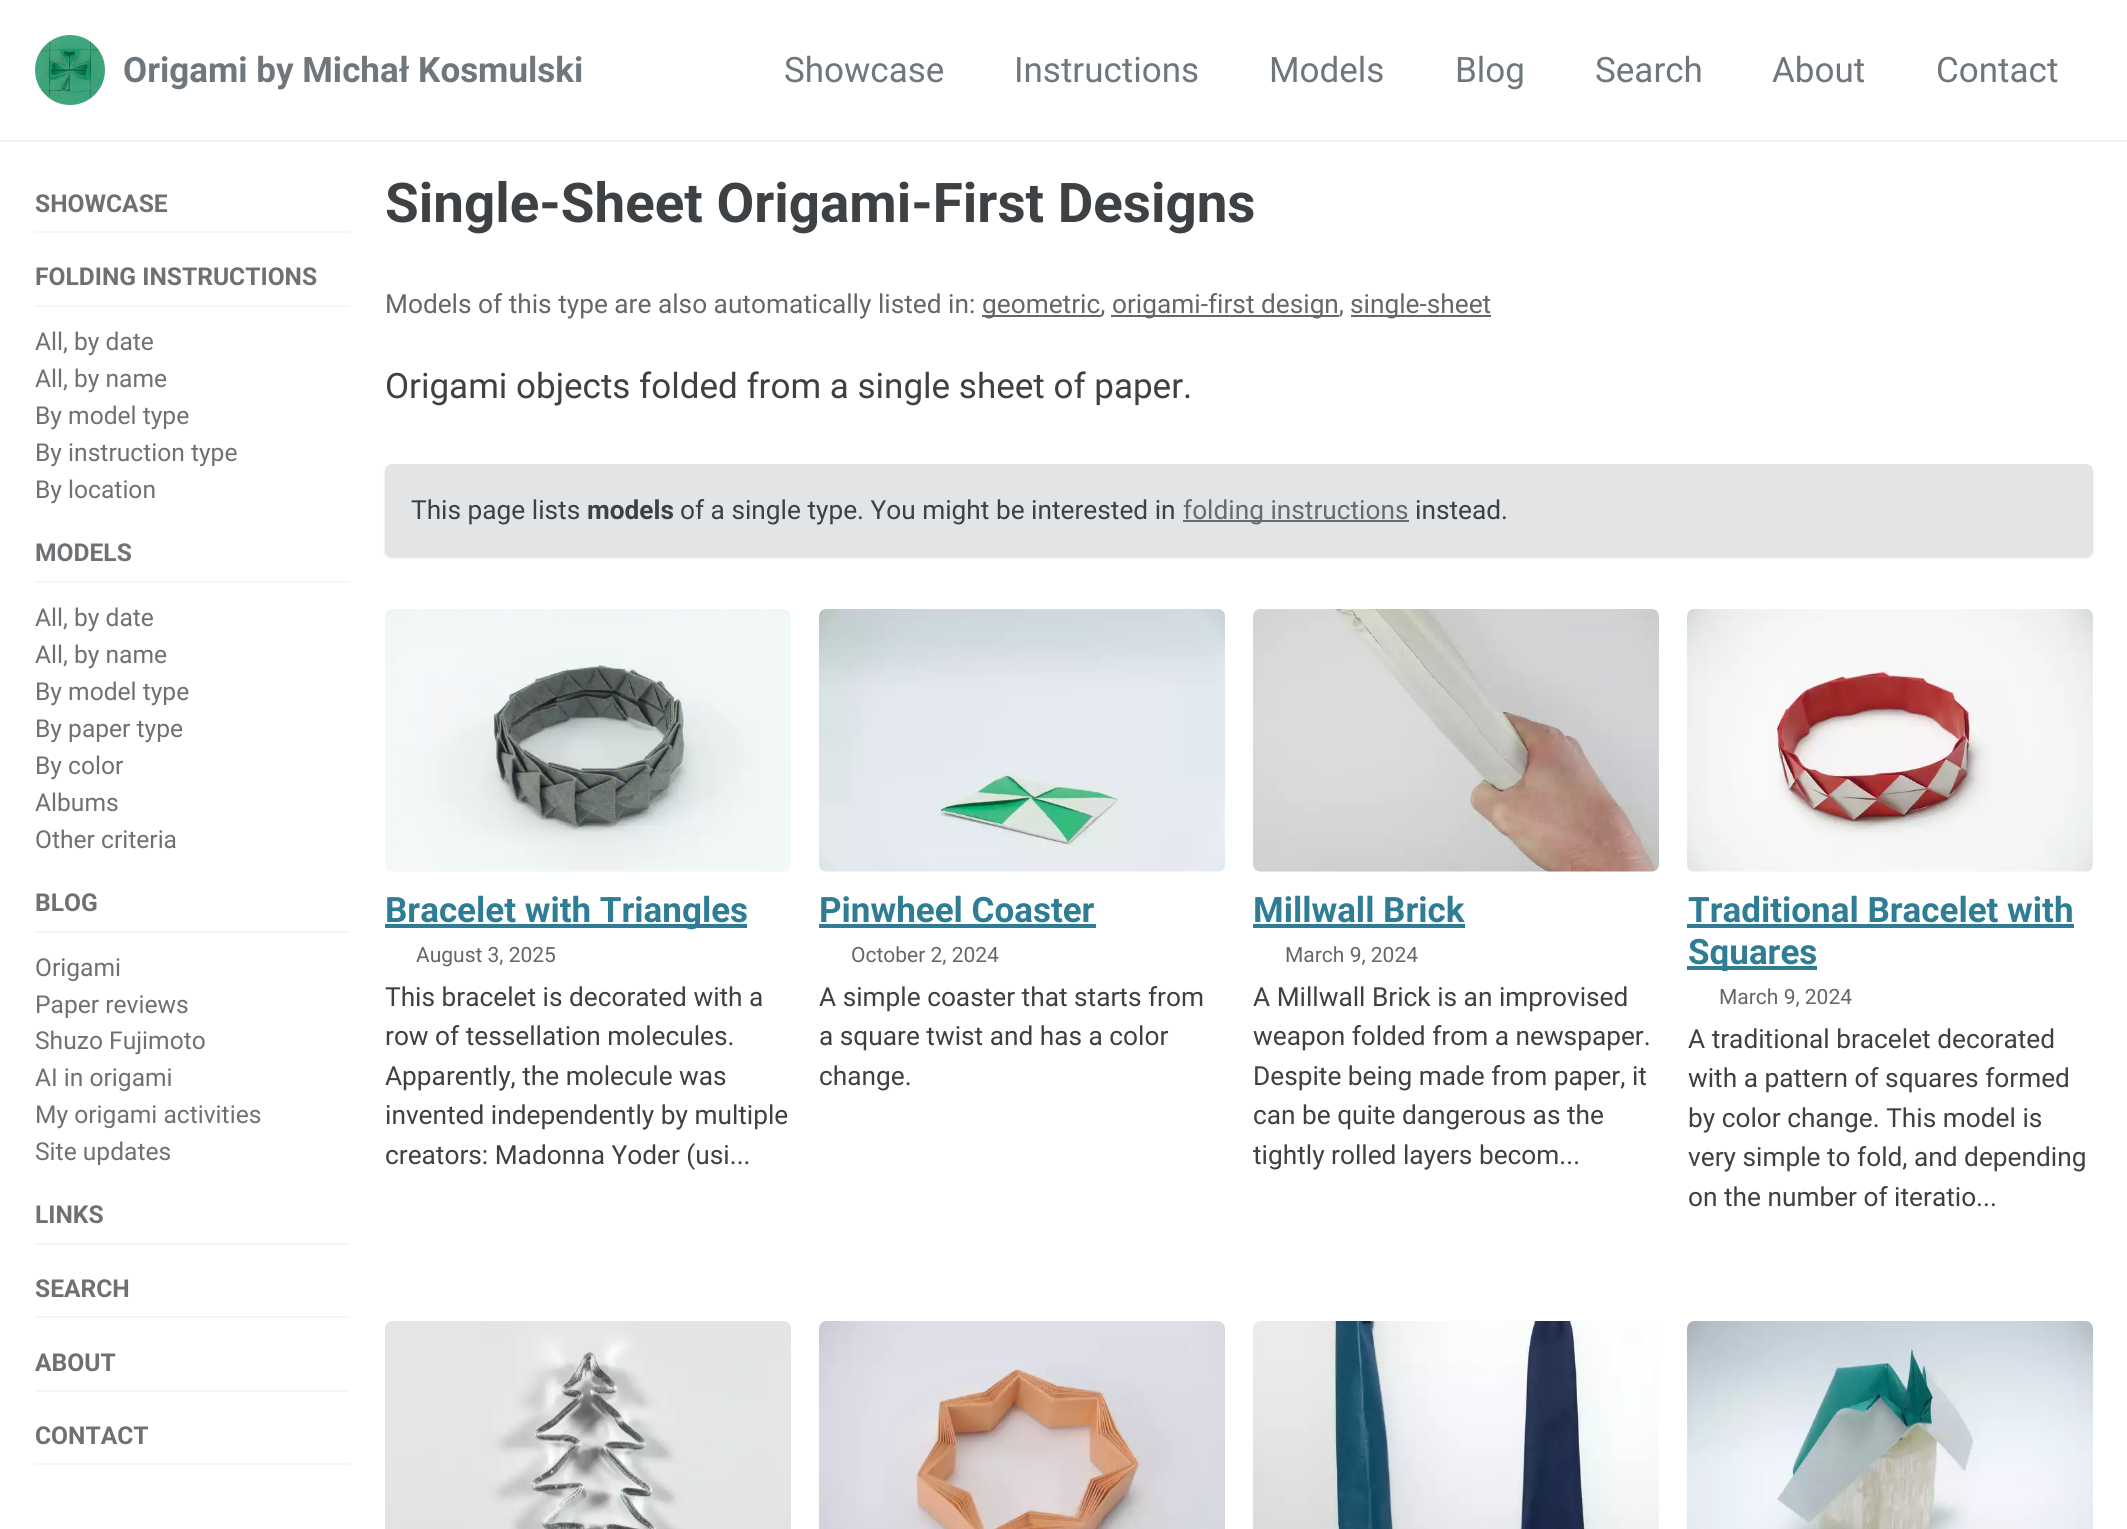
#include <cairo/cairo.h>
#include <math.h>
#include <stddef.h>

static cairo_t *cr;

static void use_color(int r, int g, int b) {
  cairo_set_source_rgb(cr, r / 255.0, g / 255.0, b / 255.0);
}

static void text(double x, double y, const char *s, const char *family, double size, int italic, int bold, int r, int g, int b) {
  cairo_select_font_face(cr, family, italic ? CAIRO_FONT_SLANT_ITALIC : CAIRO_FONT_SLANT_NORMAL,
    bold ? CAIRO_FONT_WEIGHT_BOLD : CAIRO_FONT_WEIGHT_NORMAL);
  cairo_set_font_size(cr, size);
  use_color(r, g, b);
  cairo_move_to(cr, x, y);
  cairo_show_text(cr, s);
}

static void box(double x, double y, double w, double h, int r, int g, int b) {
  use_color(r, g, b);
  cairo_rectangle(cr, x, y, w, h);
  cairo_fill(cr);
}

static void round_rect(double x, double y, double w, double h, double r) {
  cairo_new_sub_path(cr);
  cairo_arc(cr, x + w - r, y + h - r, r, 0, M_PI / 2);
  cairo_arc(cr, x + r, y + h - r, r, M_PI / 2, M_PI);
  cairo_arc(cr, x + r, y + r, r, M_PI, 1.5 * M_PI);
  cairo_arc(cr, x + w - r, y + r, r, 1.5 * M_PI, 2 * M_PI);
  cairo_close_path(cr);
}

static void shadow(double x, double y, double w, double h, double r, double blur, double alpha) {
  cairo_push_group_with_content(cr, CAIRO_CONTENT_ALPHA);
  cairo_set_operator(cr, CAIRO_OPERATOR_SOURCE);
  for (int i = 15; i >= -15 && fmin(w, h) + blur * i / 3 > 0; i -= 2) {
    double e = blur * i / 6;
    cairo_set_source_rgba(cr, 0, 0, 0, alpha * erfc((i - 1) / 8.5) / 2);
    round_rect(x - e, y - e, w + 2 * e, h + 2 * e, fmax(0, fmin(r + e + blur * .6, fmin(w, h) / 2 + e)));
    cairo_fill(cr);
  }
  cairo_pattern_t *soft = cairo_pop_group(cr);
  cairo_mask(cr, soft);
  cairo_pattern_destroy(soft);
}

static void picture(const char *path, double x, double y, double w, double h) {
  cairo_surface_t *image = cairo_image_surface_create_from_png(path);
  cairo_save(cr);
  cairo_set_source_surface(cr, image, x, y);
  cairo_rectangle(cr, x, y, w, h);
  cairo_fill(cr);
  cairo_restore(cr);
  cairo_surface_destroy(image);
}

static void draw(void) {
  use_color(255, 255, 255);
  cairo_paint(cr);
  box(0, 140, 2127, 2, 242, 243, 243);
  picture("img_01.png", 35, 35, 70, 70);
  box(35, 231, 315, 2, 245, 246, 246);
  box(35, 305, 315, 2, 245, 246, 246);
  box(35, 581, 315, 2, 245, 246, 246);
  box(35, 931, 315, 2, 245, 246, 246);
  box(35, 1243, 315, 2, 245, 246, 246);
  box(35, 1316, 315, 2, 245, 246, 246);
  box(35, 1390, 315, 2, 245, 246, 246);
  box(35, 1463, 315, 2, 245, 246, 246);
  box(982, 315, 119, 2, 100, 103, 105);
  box(1111, 315, 228, 2, 100, 103, 105);
  box(1351, 315, 140, 2, 100, 103, 105);
  use_color(111, 119, 125);
  shadow(385, 466, 1708, 92, 7, 1, 0.25);
  use_color(226, 228, 229);
  round_rect(385, 464, 1708, 93, 7);
  cairo_fill(cr);
  box(1183, 520, 226, 2, 100, 107, 113);
  picture("img_02.png", 385, 609, 406, 263);
  box(385, 924, 362, 4, 47, 125, 149);
  picture("img_03.png", 819, 609, 406, 263);
  box(819, 924, 277, 4, 47, 125, 149);
  picture("img_04.png", 1253, 609, 406, 263);
  box(1253, 924, 212, 4, 47, 125, 149);
  picture("img_05.png", 1687, 609, 406, 263);
  box(1687, 924, 387, 4, 47, 125, 149);
  box(1687, 966, 130, 4, 47, 125, 149);
  picture("img_06.png", 385, 1321, 406, 208);
  picture("img_07.png", 819, 1321, 406, 208);
  picture("img_08.png", 1253, 1321, 406, 208);
  picture("img_09.png", 1687, 1321, 406, 208);
  text(123, 82, "Origami by Michał Kosmulski", "Roboto", 35, 0, 1, 111, 119, 125);
  text(784, 82, "Showcase", "Roboto", 35, 0, 0, 111, 119, 125);
  text(1014, 82, "Instructions", "Roboto", 35, 0, 0, 111, 119, 125);
  text(1269, 82, "Models", "Roboto", 35, 0, 0, 111, 119, 125);
  text(1455, 82, "Blog", "Roboto", 35, 0, 0, 111, 119, 125);
  text(1595, 82, "Search", "Roboto", 35, 0, 0, 111, 119, 125);
  text(1772, 82, "About", "Roboto", 35, 0, 0, 111, 119, 125);
  text(1936, 82, "Contact", "Roboto", 35, 0, 0, 111, 119, 125);
  text(35, 212, "SHOWCASE", "Roboto", 24.6, 0, 1, 110, 113, 115);
  text(35, 285, "FOLDING INSTRUCTIONS", "Roboto", 24.6, 0, 1, 110, 113, 115);
  text(35, 350, "All, by date", "Roboto", 24.6, 0, 0, 110, 113, 115);
  text(35, 387, "All, by name", "Roboto", 24.6, 0, 0, 110, 113, 115);
  text(35, 424, "By model type", "Roboto", 24.6, 0, 0, 110, 113, 115);
  text(35, 461, "By instruction type", "Roboto", 24.6, 0, 0, 110, 113, 115);
  text(35, 498, "By location", "Roboto", 24.6, 0, 0, 110, 113, 115);
  text(35, 561, "MODELS", "Roboto", 24.6, 0, 1, 110, 113, 115);
  text(35, 626, "All, by date", "Roboto", 24.6, 0, 0, 110, 113, 115);
  text(35, 663, "All, by name", "Roboto", 24.6, 0, 0, 110, 113, 115);
  text(35, 700, "By model type", "Roboto", 24.6, 0, 0, 110, 113, 115);
  text(35, 737, "By paper type", "Roboto", 24.6, 0, 0, 110, 113, 115);
  text(35, 774, "By color", "Roboto", 24.6, 0, 0, 110, 113, 115);
  text(35, 811, "Albums", "Roboto", 24.6, 0, 0, 110, 113, 115);
  text(35, 848, "Other criteria", "Roboto", 24.6, 0, 0, 110, 113, 115);
  text(35, 911, "BLOG", "Roboto", 24.6, 0, 1, 110, 113, 115);
  text(35, 976, "Origami", "Roboto", 24.6, 0, 0, 110, 113, 115);
  text(35, 1013, "Paper reviews", "Roboto", 24.6, 0, 0, 110, 113, 115);
  text(35, 1049, "Shuzo Fujimoto", "Roboto", 24.6, 0, 0, 110, 113, 115);
  text(35, 1086, "AI in origami", "Roboto", 24.6, 0, 0, 110, 113, 115);
  text(35, 1123, "My origami activities", "Roboto", 24.6, 0, 0, 110, 113, 115);
  text(35, 1160, "Site updates", "Roboto", 24.6, 0, 0, 110, 113, 115);
  text(35, 1223, "LINKS", "Roboto", 24.6, 0, 1, 110, 113, 115);
  text(35, 1297, "SEARCH", "Roboto", 24.6, 0, 1, 110, 113, 115);
  text(35, 1371, "ABOUT", "Roboto", 24.6, 0, 1, 110, 113, 115);
  text(35, 1444, "CONTACT", "Roboto", 24.6, 0, 1, 110, 113, 115);
  text(385, 222, "Single-Sheet Origami-First Designs", "Roboto", 54.75, 0, 1, 61, 65, 68);
  text(385, 313, "Models of this type are also automatically listed in:", "Roboto", 26.25, 0, 0, 100, 103, 105);
  text(982, 313, "geometric,", "Roboto", 26.25, 0, 0, 100, 103, 105);
  text(1112, 313, "origami-first design,", "Roboto", 26.25, 0, 0, 100, 103, 105);
  text(1350, 313, "single-sheet", "Roboto", 26.25, 0, 0, 100, 103, 105);
  text(385, 398, "Origami objects folded from a single sheet of paper.", "Roboto", 35, 0, 0, 61, 65, 68);
  text(411, 519, "This page lists", "Roboto", 26.25, 0, 0, 61, 65, 68);
  text(587, 519, "models", "Roboto", 26.25, 0, 1, 61, 65, 68);
  text(680, 519, "of a single type. You might be interested in", "Roboto", 26.25, 0, 0, 61, 65, 68);
  text(1183, 519, "folding instructions", "Roboto", 26.25, 0, 0, 100, 107, 113);
  text(1415, 519, "instead.", "Roboto", 26.25, 0, 0, 61, 65, 68);
  text(385, 922, "Bracelet with Triangles", "Roboto", 35, 0, 1, 47, 125, 149);
  text(416, 962, "August 3, 2025", "Roboto", 21, 0, 0, 100, 103, 105);
  text(385, 1006, "This bracelet is decorated with a", "Roboto", 26.25, 0, 0, 61, 65, 68);
  text(385, 1045, "row of tessellation molecules.", "Roboto", 26.25, 0, 0, 61, 65, 68);
  text(385, 1085, "Apparently, the molecule was", "Roboto", 26.25, 0, 0, 61, 65, 68);
  text(385, 1124, "invented independently by multiple", "Roboto", 26.25, 0, 0, 61, 65, 68);
  text(385, 1164, "creators: Madonna Yoder (usi...", "Roboto", 26.25, 0, 0, 61, 65, 68);
  text(819, 922, "Pinwheel Coaster", "Roboto", 35, 0, 1, 47, 125, 149);
  text(851, 962, "October 2, 2024", "Roboto", 21, 0, 0, 100, 103, 105);
  text(819, 1006, "A simple coaster that starts from", "Roboto", 26.25, 0, 0, 61, 65, 68);
  text(819, 1045, "a square twist and has a color", "Roboto", 26.25, 0, 0, 61, 65, 68);
  text(819, 1085, "change.", "Roboto", 26.25, 0, 0, 61, 65, 68);
  text(1253, 922, "Millwall Brick", "Roboto", 35, 0, 1, 47, 125, 149);
  text(1285, 962, "March 9, 2024", "Roboto", 21, 0, 0, 100, 103, 105);
  text(1253, 1006, "A Millwall Brick is an improvised", "Roboto", 26.25, 0, 0, 61, 65, 68);
  text(1253, 1045, "weapon folded from a newspaper.", "Roboto", 26.25, 0, 0, 61, 65, 68);
  text(1253, 1085, "Despite being made from paper, it", "Roboto", 26.25, 0, 0, 61, 65, 68);
  text(1253, 1124, "can be quite dangerous as the", "Roboto", 26.25, 0, 0, 61, 65, 68);
  text(1253, 1164, "tightly rolled layers becom...", "Roboto", 26.25, 0, 0, 61, 65, 68);
  text(1688, 922, "Traditional Bracelet with", "Roboto", 35, 0, 1, 47, 125, 149);
  text(1688, 964, "Squares", "Roboto", 35, 0, 1, 47, 125, 149);
  text(1719, 1004, "March 9, 2024", "Roboto", 21, 0, 0, 100, 103, 105);
  text(1688, 1048, "A traditional bracelet decorated", "Roboto", 26.25, 0, 0, 61, 65, 68);
  text(1688, 1087, "with a pattern of squares formed", "Roboto", 26.25, 0, 0, 61, 65, 68);
  text(1688, 1127, "by color change. This model is", "Roboto", 26.25, 0, 0, 61, 65, 68);
  text(1688, 1166, "very simple to fold, and depending", "Roboto", 26.25, 0, 0, 61, 65, 68);
  text(1688, 1206, "on the number of iteratio...", "Roboto", 26.25, 0, 0, 61, 65, 68);
}

int main(void) {
  cairo_surface_t *surface = cairo_image_surface_create(CAIRO_FORMAT_RGB24, 2127, 1529);
  cr = cairo_create(surface);
  cairo_font_options_t *options = cairo_font_options_create();
  cairo_font_options_set_hint_metrics(options, CAIRO_HINT_METRICS_OFF);
  cairo_font_options_set_hint_style(options, CAIRO_HINT_STYLE_NONE);
  cairo_set_font_options(cr, options);
  cairo_set_miter_limit(cr, 4);
  draw();
  cairo_surface_write_to_png(surface, "out.png");
  cairo_font_options_destroy(options);
  cairo_destroy(cr);
  cairo_surface_destroy(surface);
  return 0;
}
